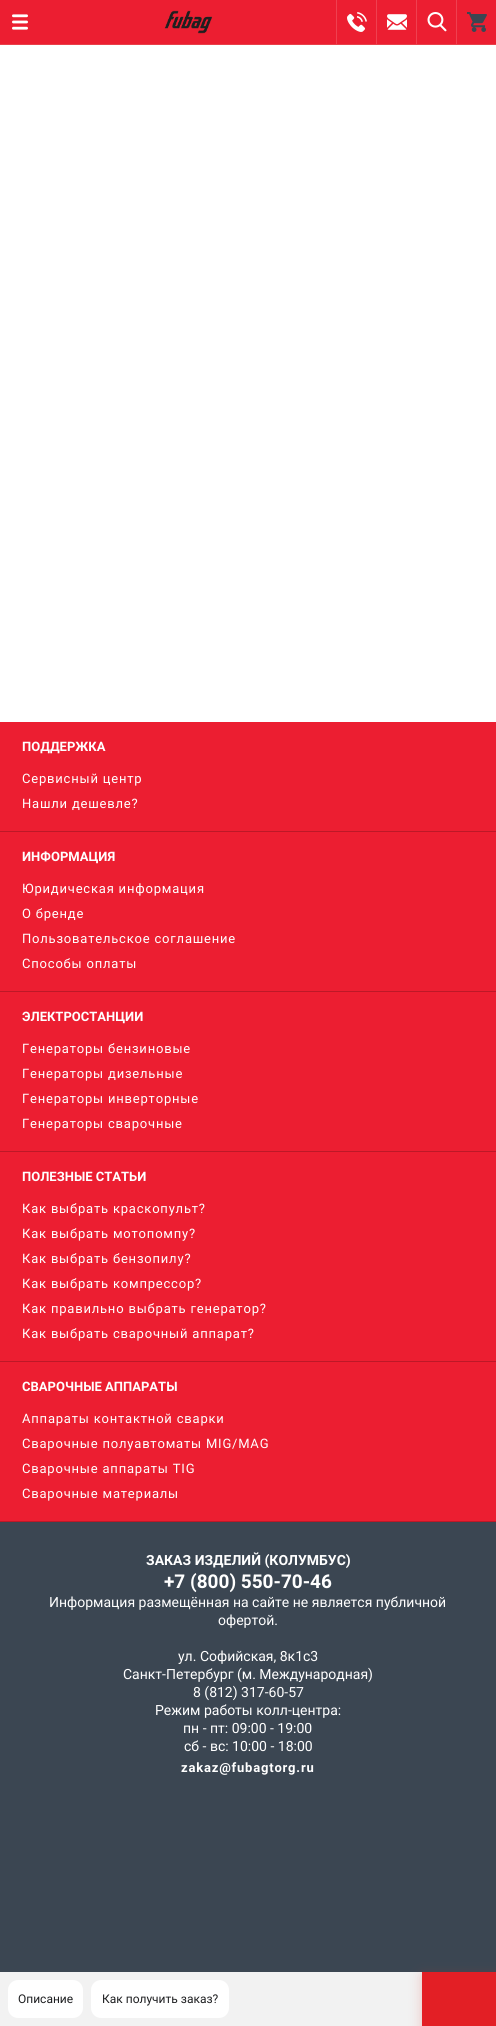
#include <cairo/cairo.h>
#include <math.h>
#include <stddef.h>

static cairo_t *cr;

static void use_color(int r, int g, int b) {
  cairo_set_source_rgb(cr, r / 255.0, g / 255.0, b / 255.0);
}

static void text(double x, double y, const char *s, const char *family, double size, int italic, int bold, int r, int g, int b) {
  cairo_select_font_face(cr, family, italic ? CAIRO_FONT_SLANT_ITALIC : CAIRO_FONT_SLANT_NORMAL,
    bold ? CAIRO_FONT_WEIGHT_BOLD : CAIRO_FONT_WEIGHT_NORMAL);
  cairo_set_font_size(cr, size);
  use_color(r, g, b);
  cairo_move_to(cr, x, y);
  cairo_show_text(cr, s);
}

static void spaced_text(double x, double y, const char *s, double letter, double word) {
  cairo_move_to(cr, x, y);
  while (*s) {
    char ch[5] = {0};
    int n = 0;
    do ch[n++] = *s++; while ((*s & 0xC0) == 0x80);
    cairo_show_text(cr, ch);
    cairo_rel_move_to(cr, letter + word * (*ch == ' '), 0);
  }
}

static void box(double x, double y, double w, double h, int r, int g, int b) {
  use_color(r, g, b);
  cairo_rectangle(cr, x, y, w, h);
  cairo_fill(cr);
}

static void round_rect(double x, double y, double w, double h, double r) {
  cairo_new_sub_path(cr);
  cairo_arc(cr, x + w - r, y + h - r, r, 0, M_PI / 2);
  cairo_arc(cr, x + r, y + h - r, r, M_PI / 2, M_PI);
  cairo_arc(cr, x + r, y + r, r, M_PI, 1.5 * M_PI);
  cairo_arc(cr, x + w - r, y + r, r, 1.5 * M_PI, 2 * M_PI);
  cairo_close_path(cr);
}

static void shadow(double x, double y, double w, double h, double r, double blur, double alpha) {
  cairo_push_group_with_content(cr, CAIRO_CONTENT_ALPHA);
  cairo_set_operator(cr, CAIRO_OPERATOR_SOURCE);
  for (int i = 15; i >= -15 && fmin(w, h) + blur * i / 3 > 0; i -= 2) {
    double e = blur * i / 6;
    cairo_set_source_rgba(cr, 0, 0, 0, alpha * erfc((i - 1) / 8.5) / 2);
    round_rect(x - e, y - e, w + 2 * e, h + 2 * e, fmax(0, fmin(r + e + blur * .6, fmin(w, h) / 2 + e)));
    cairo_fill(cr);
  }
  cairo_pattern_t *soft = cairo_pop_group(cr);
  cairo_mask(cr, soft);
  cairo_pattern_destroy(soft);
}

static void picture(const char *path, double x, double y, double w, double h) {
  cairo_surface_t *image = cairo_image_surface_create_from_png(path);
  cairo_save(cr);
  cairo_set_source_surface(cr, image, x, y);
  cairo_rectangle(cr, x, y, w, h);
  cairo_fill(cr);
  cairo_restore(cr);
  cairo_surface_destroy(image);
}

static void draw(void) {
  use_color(255, 255, 255);
  cairo_paint(cr);
  box(0, 0, 496, 44, 236, 30, 49);
  box(0, 44, 496, 1, 233, 64, 74);
  picture("img_01.png", 12, 14, 16, 16);
  picture("img_02.png", 164, 10, 49, 24);
  box(336, 0, 1, 44, 239, 64, 80);
  picture("img_03.png", 347, 12, 20, 20);
  box(376, 0, 1, 44, 239, 64, 80);
  picture("img_04.png", 387, 14, 20, 16);
  box(416, 0, 1, 44, 239, 64, 80);
  picture("img_05.png", 427, 12, 20, 20);
  box(456, 0, 1, 44, 239, 64, 80);
  picture("img_06.png", 467, 12, 20, 20);
  box(0, 722, 496, 799, 236, 30, 49);
  box(0, 831, 496, 1, 189, 24, 39);
  box(0, 991, 496, 1, 189, 24, 39);
  box(0, 1151, 496, 1, 189, 24, 39);
  box(0, 1361, 496, 1, 189, 24, 39);
  box(0, 1521, 496, 1, 189, 24, 39);
  box(0, 1522, 496, 450, 59, 70, 82);
  box(0, 1972, 422, 54, 242, 242, 242);
  use_color(255, 255, 255);
  round_rect(8, 1980, 75, 38, 10);
  cairo_fill(cr);
  round_rect(91, 1980, 138, 38, 10);
  cairo_fill(cr);
  use_color(208, 55, 47);
  shadow(422, 1976, 74, 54, 0, 6.5, 0.25);
  box(422, 1972, 74, 54, 227, 31, 37);
  text(22, 751, "ПОДДЕРЖКА", "Roboto", 13, 0, 1, 255, 255, 255);
  cairo_select_font_face(cr, "Roboto", CAIRO_FONT_SLANT_NORMAL, CAIRO_FONT_WEIGHT_NORMAL);
  spaced_text(22, 783, "Сервисный центр", 0.8, 0);
  spaced_text(22, 808, "Нашли дешевле?", 0.8, 0);
  text(22, 861, "ИНФОРМАЦИЯ", "Roboto", 13, 0, 1, 255, 255, 255);
  cairo_select_font_face(cr, "Roboto", CAIRO_FONT_SLANT_NORMAL, CAIRO_FONT_WEIGHT_NORMAL);
  spaced_text(22, 893, "Юридическая информация", 0.8, 0);
  spaced_text(22, 918, "О бренде", 0.8, 0);
  spaced_text(22, 943, "Пользовательское соглашение", 0.8, 0);
  spaced_text(22, 968, "Способы оплаты", 0.8, 0);
  text(22, 1021, "ЭЛЕКТРОСТАНЦИИ", "Roboto", 13, 0, 1, 255, 255, 255);
  cairo_select_font_face(cr, "Roboto", CAIRO_FONT_SLANT_NORMAL, CAIRO_FONT_WEIGHT_NORMAL);
  spaced_text(22, 1053, "Генераторы бензиновые", 0.8, 0);
  spaced_text(22, 1078, "Генераторы дизельные", 0.8, 0);
  spaced_text(22, 1103, "Генераторы инверторные", 0.8, 0);
  spaced_text(22, 1128, "Генераторы сварочные", 0.8, 0);
  text(22, 1181, "ПОЛЕЗНЫЕ СТАТЬИ", "Roboto", 13, 0, 1, 255, 255, 255);
  cairo_select_font_face(cr, "Roboto", CAIRO_FONT_SLANT_NORMAL, CAIRO_FONT_WEIGHT_NORMAL);
  spaced_text(22, 1213, "Как выбрать краскопульт?", 0.8, 0);
  spaced_text(22, 1238, "Как выбрать мотопомпу?", 0.8, 0);
  spaced_text(22, 1263, "Как выбрать бензопилу?", 0.8, 0);
  spaced_text(22, 1288, "Как выбрать компрессор?", 0.8, 0);
  spaced_text(22, 1313, "Как правильно выбрать генератор?", 0.8, 0);
  spaced_text(22, 1338, "Как выбрать сварочный аппарат?", 0.8, 0);
  text(22, 1391, "СВАРОЧНЫЕ АППАРАТЫ", "Roboto", 13, 0, 1, 255, 255, 255);
  cairo_select_font_face(cr, "Roboto", CAIRO_FONT_SLANT_NORMAL, CAIRO_FONT_WEIGHT_NORMAL);
  spaced_text(22, 1423, "Аппараты контактной сварки", 0.8, 0);
  spaced_text(22, 1448, "Сварочные полуавтоматы MIG/MAG", 0.8, 0);
  spaced_text(22, 1473, "Сварочные аппараты TIG", 0.8, 0);
  spaced_text(22, 1498, "Сварочные материалы", 0.8, 0);
  text(146, 1565, "ЗАКАЗ ИЗДЕЛИЙ (КОЛУМБУС)", "Roboto", 14, 0, 1, 255, 255, 255);
  text(164, 1588, "+7 (800) 550-70-46", "Roboto", 19, 0, 1, 255, 255, 255);
  text(49, 1607, "Информация размещённая на сайте не является публичной", "Roboto", 14, 0, 0, 255, 255, 255);
  text(218, 1625, "офертой.", "Roboto", 14, 0, 0, 255, 255, 255);
  text(178, 1661, "ул. Софийская, 8к1с3", "Roboto", 14, 0, 0, 255, 255, 255);
  text(123, 1679, "Санкт-Петербург (м. Международная)", "Roboto", 14, 0, 0, 255, 255, 255);
  text(193, 1697, "8 (812) 317-60-57", "Roboto", 14, 0, 0, 255, 255, 255);
  text(155, 1715, "Режим работы колл-центра:", "Roboto", 14, 0, 0, 255, 255, 255);
  text(183, 1733, "пн - пт: 09:00 - 19:00", "Roboto", 14, 0, 0, 255, 255, 255);
  text(184, 1751, "сб - вс: 10:00 - 18:00", "Roboto", 14, 0, 0, 255, 255, 255);
  cairo_select_font_face(cr, "Roboto", CAIRO_FONT_SLANT_NORMAL, CAIRO_FONT_WEIGHT_BOLD);
  cairo_set_font_size(cr, 13);
  spaced_text(181, 1772, "zakaz@fubagtorg.ru", 0.8, 0);
  text(18, 2003, "Описание", "Roboto", 12, 0, 0, 29, 30, 32);
  text(102, 2003, "Как получить заказ?", "Roboto", 12, 0, 0, 29, 30, 32);
}

int main(void) {
  cairo_surface_t *surface = cairo_image_surface_create(CAIRO_FORMAT_RGB24, 496, 2026);
  cr = cairo_create(surface);
  cairo_font_options_t *options = cairo_font_options_create();
  cairo_font_options_set_hint_metrics(options, CAIRO_HINT_METRICS_OFF);
  cairo_font_options_set_hint_style(options, CAIRO_HINT_STYLE_NONE);
  cairo_set_font_options(cr, options);
  cairo_set_miter_limit(cr, 4);
  draw();
  cairo_surface_write_to_png(surface, "out.png");
  cairo_font_options_destroy(options);
  cairo_destroy(cr);
  cairo_surface_destroy(surface);
  return 0;
}
